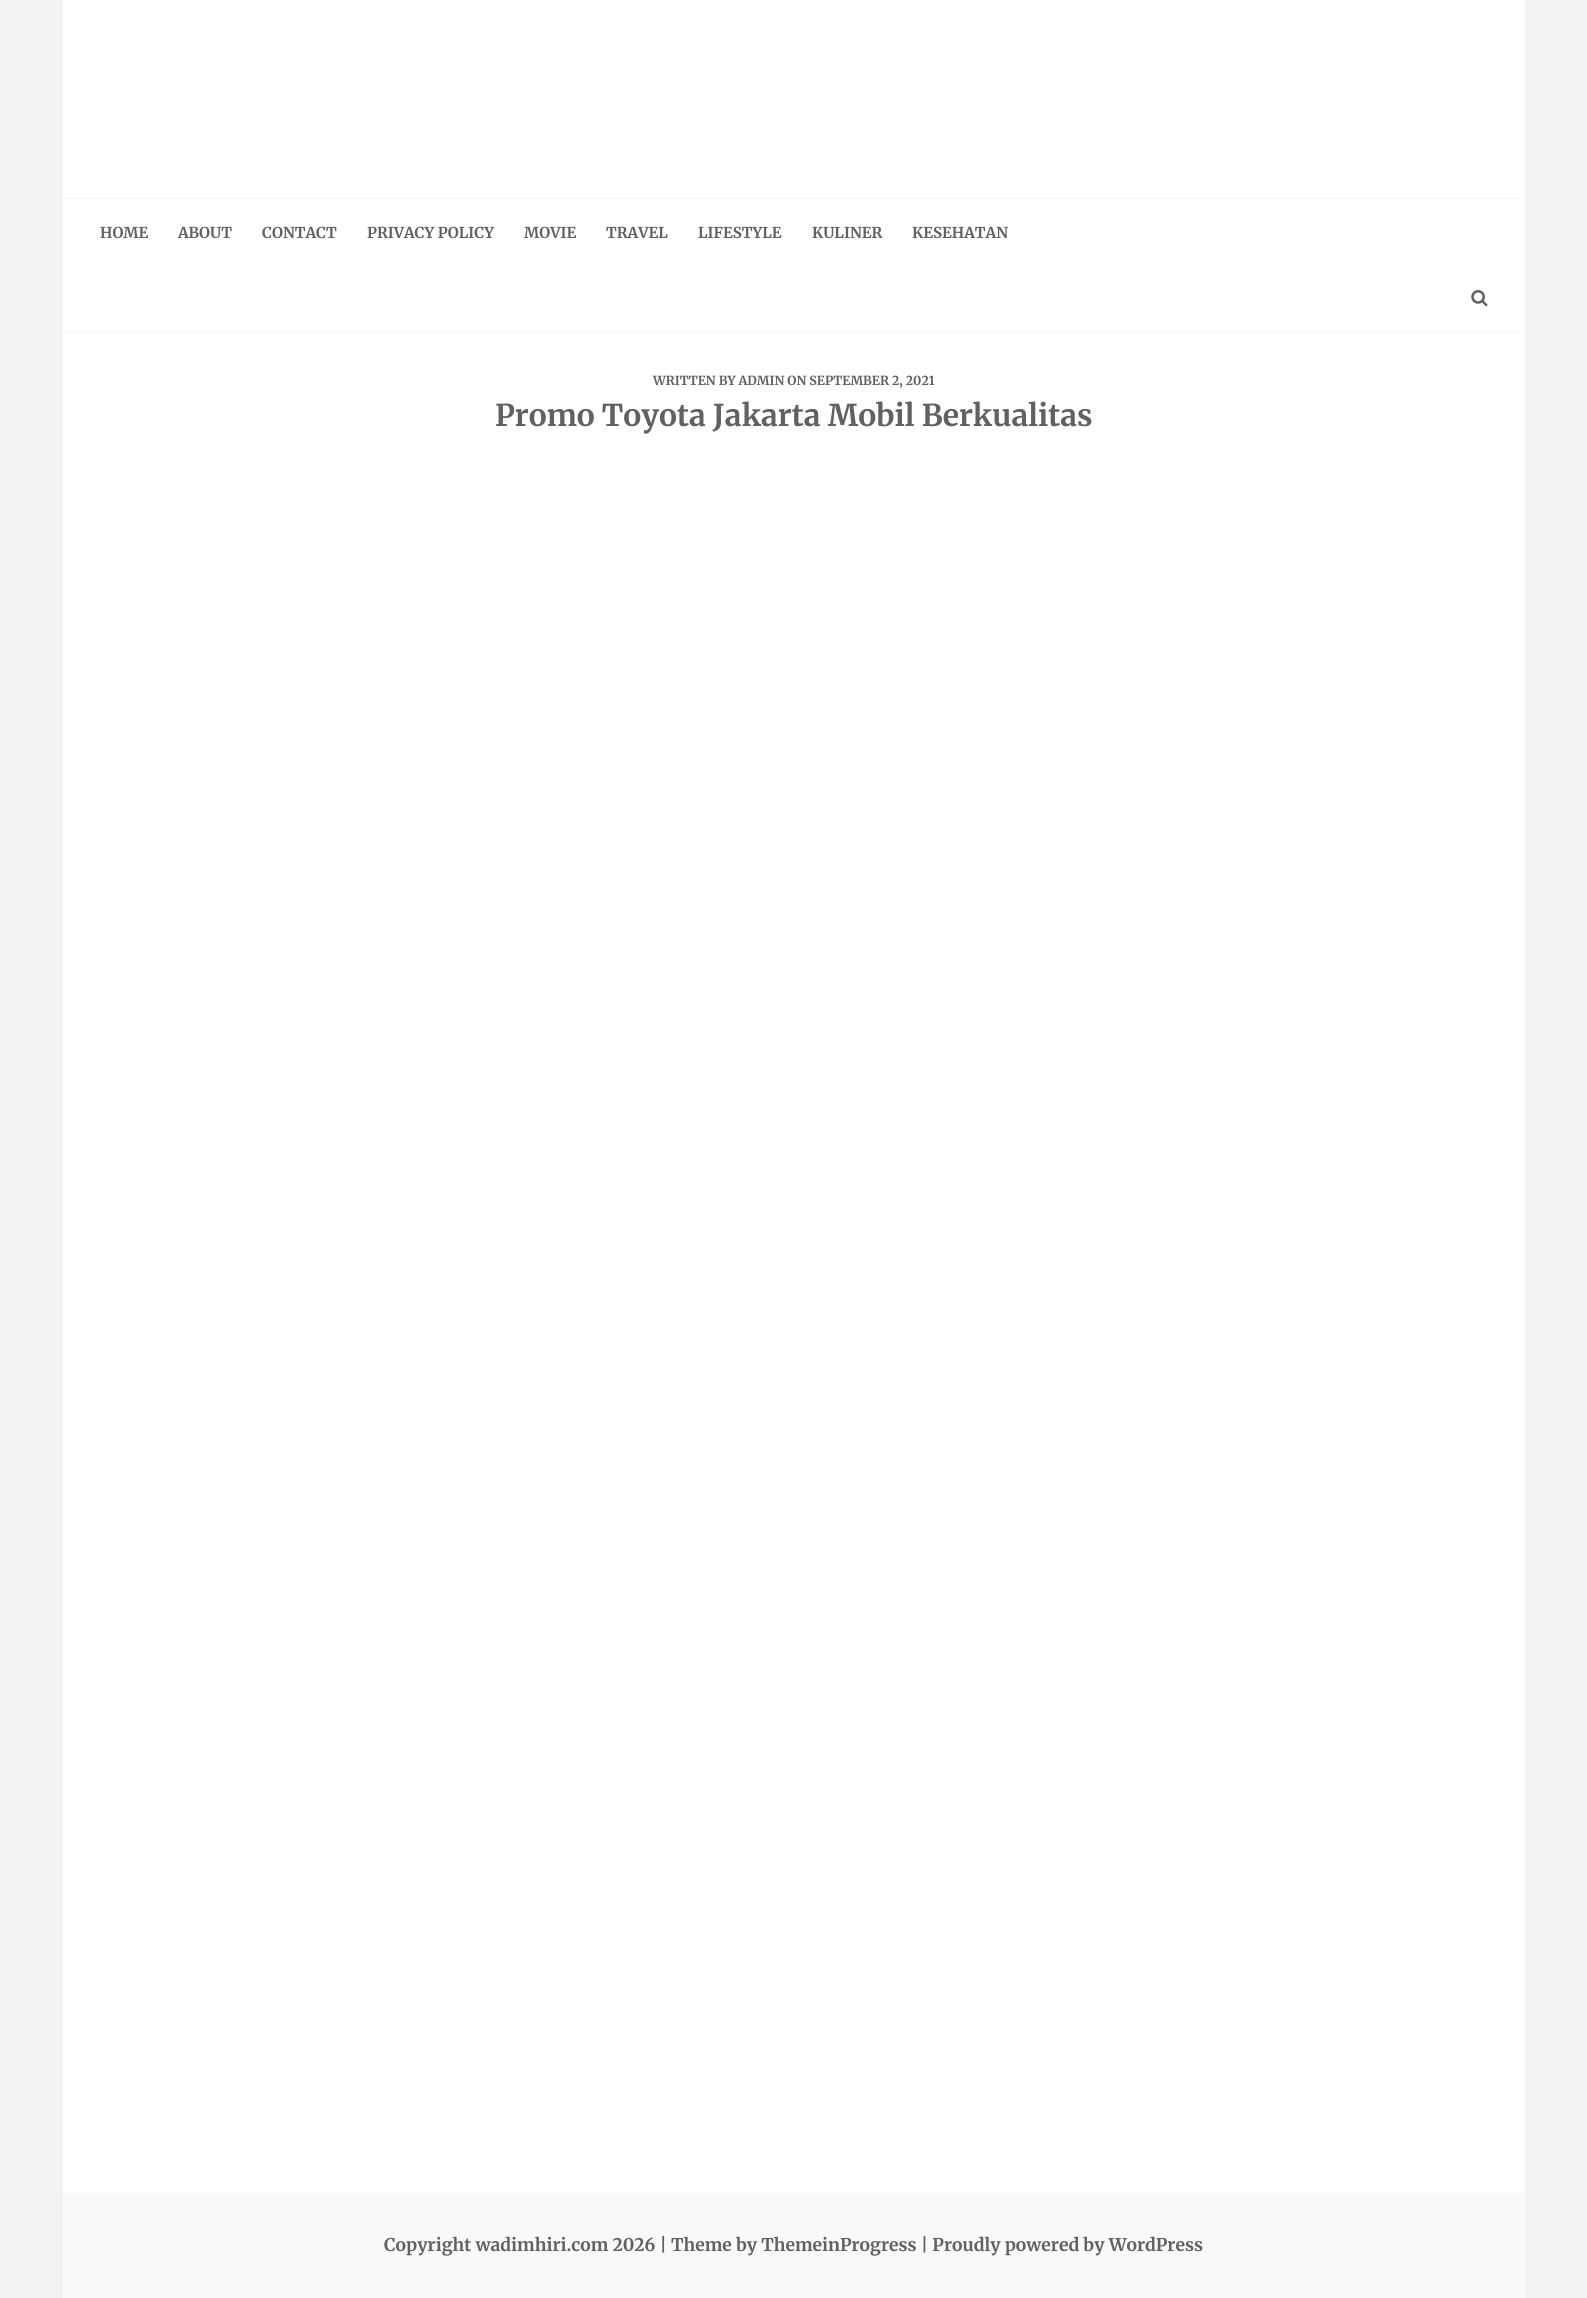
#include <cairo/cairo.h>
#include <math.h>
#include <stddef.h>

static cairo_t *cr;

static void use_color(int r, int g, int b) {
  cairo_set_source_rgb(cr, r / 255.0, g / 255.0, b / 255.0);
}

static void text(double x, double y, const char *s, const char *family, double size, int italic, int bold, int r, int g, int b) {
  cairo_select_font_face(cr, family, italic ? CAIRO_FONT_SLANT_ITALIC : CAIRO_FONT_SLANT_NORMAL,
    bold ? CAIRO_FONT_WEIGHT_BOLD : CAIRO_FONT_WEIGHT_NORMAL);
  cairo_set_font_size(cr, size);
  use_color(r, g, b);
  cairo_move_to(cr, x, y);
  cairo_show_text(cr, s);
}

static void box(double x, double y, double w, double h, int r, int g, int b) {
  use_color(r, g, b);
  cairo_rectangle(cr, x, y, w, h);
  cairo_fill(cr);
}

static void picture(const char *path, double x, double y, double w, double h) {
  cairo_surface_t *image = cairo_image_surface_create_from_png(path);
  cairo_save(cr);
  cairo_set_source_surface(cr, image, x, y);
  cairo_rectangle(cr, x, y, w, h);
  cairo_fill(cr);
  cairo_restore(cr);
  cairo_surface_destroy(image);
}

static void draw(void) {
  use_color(243, 243, 243);
  cairo_paint(cr);
  box(63, 0, 1462, 2193, 255, 255, 255);
  box(63, 198, 1462, 1, 246, 246, 246);
  box(63, 331, 1462, 1, 246, 246, 246);
  picture("img_01.png", 1471, 290, 17, 17);
  box(63, 2193, 1462, 105, 249, 249, 249);
  text(100, 238, "HOME", "Merriweather", 15, 0, 1, 97, 97, 97);
  text(178, 238, "ABOUT", "Merriweather", 15, 0, 1, 97, 97, 97);
  text(262, 238, "CONTACT", "Merriweather", 15, 0, 1, 97, 97, 97);
  text(367, 238, "PRIVACY POLICY", "Merriweather", 15, 0, 1, 97, 97, 97);
  text(524, 238, "MOVIE", "Merriweather", 15, 0, 1, 97, 97, 97);
  text(606, 238, "TRAVEL", "Merriweather", 15, 0, 1, 97, 97, 97);
  text(698, 238, "LIFESTYLE", "Merriweather", 15, 0, 1, 97, 97, 97);
  text(812, 238, "KULINER", "Merriweather", 15, 0, 1, 97, 97, 97);
  text(912, 238, "KESEHATAN", "Merriweather", 15, 0, 1, 97, 97, 97);
  text(653, 385, "WRITTEN BY ADMIN ON SEPTEMBER 2, 2021", "Merriweather", 12.5, 0, 1, 97, 97, 97);
  text(495, 426, "Promo Toyota Jakarta Mobil Berkualitas", "Merriweather", 30, 0, 1, 97, 97, 97);
  text(384, 2251, "Copyright wadimhiri.com 2026 | Theme by ThemeinProgress | Proudly powered by WordPress", "Merriweather", 17.5, 0, 1, 97, 97, 97);
}

int main(void) {
  cairo_surface_t *surface = cairo_image_surface_create(CAIRO_FORMAT_RGB24, 1587, 2298);
  cr = cairo_create(surface);
  cairo_font_options_t *options = cairo_font_options_create();
  cairo_font_options_set_hint_metrics(options, CAIRO_HINT_METRICS_OFF);
  cairo_font_options_set_hint_style(options, CAIRO_HINT_STYLE_NONE);
  cairo_set_font_options(cr, options);
  cairo_set_miter_limit(cr, 4);
  draw();
  cairo_surface_write_to_png(surface, "out.png");
  cairo_font_options_destroy(options);
  cairo_destroy(cr);
  cairo_surface_destroy(surface);
  return 0;
}
